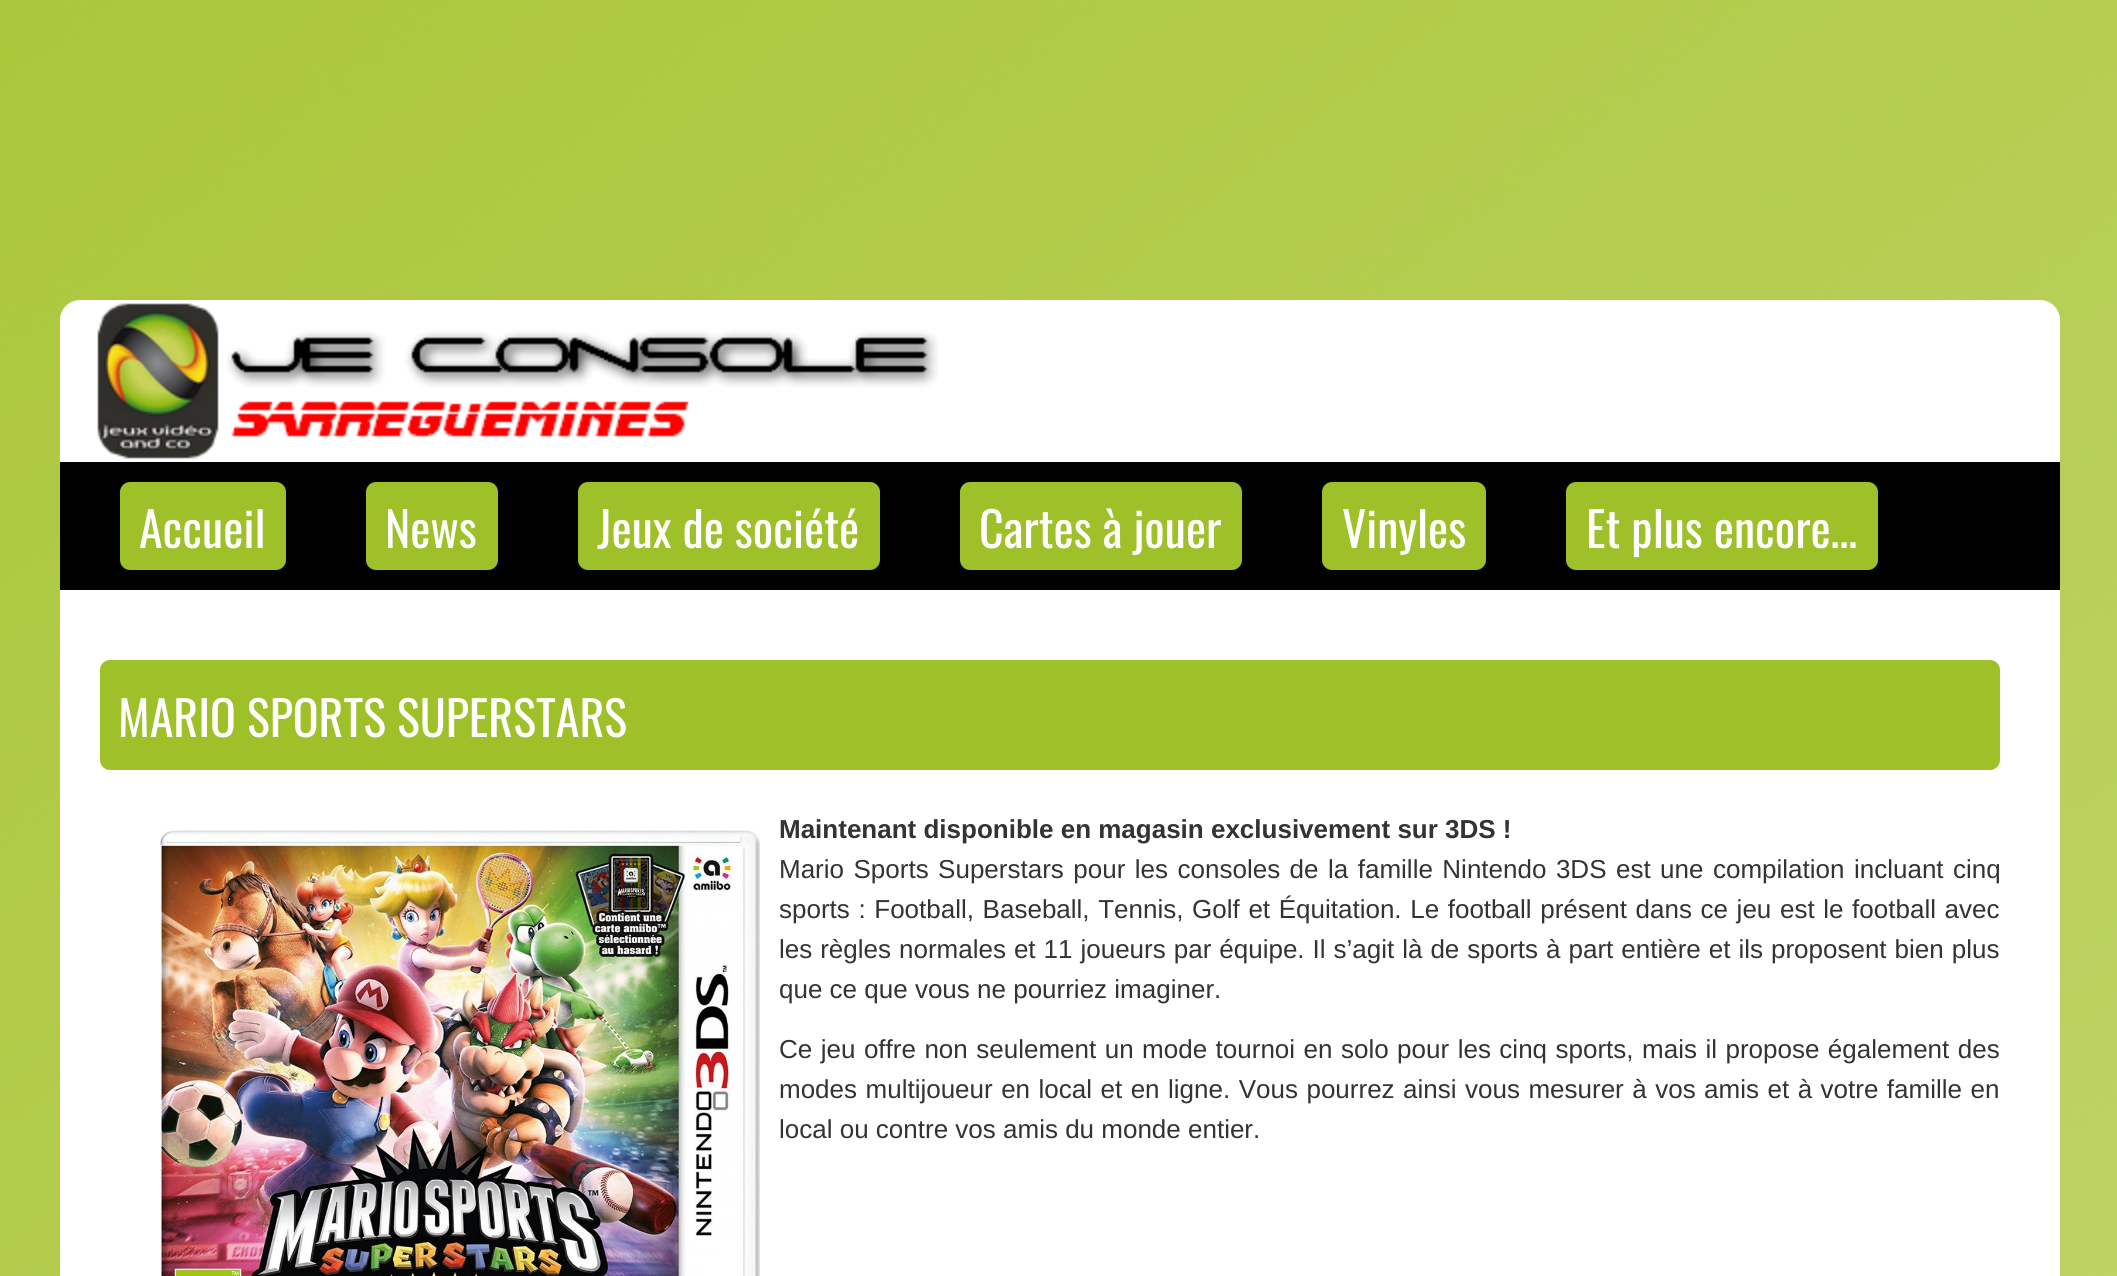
#include <cairo/cairo.h>
#include <math.h>
#include <stddef.h>

static cairo_t *cr;

static void use_color(int r, int g, int b) {
  cairo_set_source_rgb(cr, r / 255.0, g / 255.0, b / 255.0);
}

static void text(double x, double y, const char *s, const char *family, double size, int italic, int bold, int r, int g, int b) {
  cairo_select_font_face(cr, family, italic ? CAIRO_FONT_SLANT_ITALIC : CAIRO_FONT_SLANT_NORMAL,
    bold ? CAIRO_FONT_WEIGHT_BOLD : CAIRO_FONT_WEIGHT_NORMAL);
  cairo_set_font_size(cr, size);
  use_color(r, g, b);
  cairo_move_to(cr, x, y);
  cairo_show_text(cr, s);
}

static void spaced_text(double x, double y, const char *s, double letter, double word) {
  cairo_move_to(cr, x, y);
  while (*s) {
    char ch[5] = {0};
    int n = 0;
    do ch[n++] = *s++; while ((*s & 0xC0) == 0x80);
    cairo_show_text(cr, ch);
    cairo_rel_move_to(cr, letter + word * (*ch == ' '), 0);
  }
}

static void box(double x, double y, double w, double h, int r, int g, int b) {
  use_color(r, g, b);
  cairo_rectangle(cr, x, y, w, h);
  cairo_fill(cr);
}

static void round_rect(double x, double y, double w, double h, double r) {
  cairo_new_sub_path(cr);
  cairo_arc(cr, x + w - r, y + h - r, r, 0, M_PI / 2);
  cairo_arc(cr, x + r, y + h - r, r, M_PI / 2, M_PI);
  cairo_arc(cr, x + r, y + r, r, M_PI, 1.5 * M_PI);
  cairo_arc(cr, x + w - r, y + r, r, 1.5 * M_PI, 2 * M_PI);
  cairo_close_path(cr);
}

static void picture(const char *path, double x, double y, double w, double h) {
  cairo_surface_t *image = cairo_image_surface_create_from_png(path);
  cairo_save(cr);
  cairo_set_source_surface(cr, image, x, y);
  cairo_rectangle(cr, x, y, w, h);
  cairo_fill(cr);
  cairo_restore(cr);
  cairo_surface_destroy(image);
}

static void draw(void) {
  use_color(255, 255, 255);
  cairo_paint(cr);
  picture("img_01.png", 0, 0, 2117, 1276);
  use_color(255, 255, 255);
  cairo_new_path(cr);
  cairo_move_to(cr, 80, 300);
  cairo_line_to(cr, 2040, 300);
  cairo_curve_to(cr, 2051, 300, 2060, 309, 2060, 320);
  cairo_line_to(cr, 2060, 462);
  cairo_line_to(cr, 60, 462);
  cairo_line_to(cr, 60, 320);
  cairo_curve_to(cr, 60, 309, 69, 300, 80, 300);
  cairo_close_path(cr);
  cairo_fill(cr);
  picture("img_02.png", 97, 303, 841, 156);
  box(60, 462, 2000, 128, 1, 1, 1);
  use_color(158, 192, 41);
  round_rect(120, 482, 166, 88, 10);
  cairo_fill(cr);
  round_rect(366, 482, 132, 88, 10);
  cairo_fill(cr);
  round_rect(578, 482, 302, 88, 10);
  cairo_fill(cr);
  round_rect(960, 482, 282, 88, 10);
  cairo_fill(cr);
  round_rect(1322, 482, 164, 88, 10);
  cairo_fill(cr);
  round_rect(1566, 482, 312, 88, 10);
  cairo_fill(cr);
  box(60, 590, 2000, 686, 255, 255, 255);
  use_color(158, 192, 41);
  round_rect(100, 660, 1900, 110, 10);
  cairo_fill(cr);
  picture("img_03.png", 160, 830, 600, 446);
  text(139, 548, "Accueil", "Oswald", 48, 0, 0, 255, 255, 255);
  text(385, 548, "News", "Oswald", 48, 0, 0, 255, 255, 255);
  text(597, 548, "Jeux de société", "Oswald", 48, 0, 0, 255, 255, 255);
  text(979, 548, "Cartes à jouer", "Oswald", 48, 0, 0, 255, 255, 255);
  text(1342, 548, "Vinyles", "Oswald", 48, 0, 0, 255, 255, 255);
  text(1586, 548, "Et plus encore…", "Oswald", 48, 0, 0, 255, 255, 255);
  text(118, 737, "MARIO SPORTS SUPERSTARS", "Oswald", 48, 0, 0, 255, 255, 255);
  text(779, 838, "Maintenant disponible en magasin exclusivement sur 3DS !", "Liberation Sans", 26, 0, 1, 51, 51, 51);
  cairo_select_font_face(cr, "Liberation Sans", CAIRO_FONT_SLANT_NORMAL, CAIRO_FONT_WEIGHT_NORMAL);
  spaced_text(779, 878, "Mario Sports Superstars pour les consoles de la famille Nintendo 3DS est une compilation incluant cinq", 0, 2.25);
  spaced_text(779, 918, "sports : Football, Baseball, Tennis, Golf et Équitation. Le football présent dans ce jeu est le football avec", 0, 1.4);
  spaced_text(779, 958, "les règles normales et 11 joueurs par équipe. Il s’agit là de sports à part entière et ils proposent bien plus", 0, 0.75);
  text(779, 998, "que ce que vous ne pourriez imaginer.", "Liberation Sans", 26, 0, 0, 51, 51, 51);
  spaced_text(779, 1058, "Ce jeu offre non seulement un mode tournoi en solo pour les cinq sports, mais il propose également des", 0, 1.25);
  spaced_text(779, 1098, "modes multijoueur en local et en ligne. Vous pourrez ainsi vous mesurer à vos amis et à votre famille en", 0, 1.25);
  text(779, 1138, "local ou contre vos amis du monde entier.", "Liberation Sans", 26, 0, 0, 51, 51, 51);
}

int main(void) {
  cairo_surface_t *surface = cairo_image_surface_create(CAIRO_FORMAT_RGB24, 2117, 1276);
  cr = cairo_create(surface);
  cairo_font_options_t *options = cairo_font_options_create();
  cairo_font_options_set_hint_metrics(options, CAIRO_HINT_METRICS_OFF);
  cairo_font_options_set_hint_style(options, CAIRO_HINT_STYLE_NONE);
  cairo_set_font_options(cr, options);
  cairo_set_miter_limit(cr, 4);
  draw();
  cairo_surface_write_to_png(surface, "out.png");
  cairo_font_options_destroy(options);
  cairo_destroy(cr);
  cairo_surface_destroy(surface);
  return 0;
}
